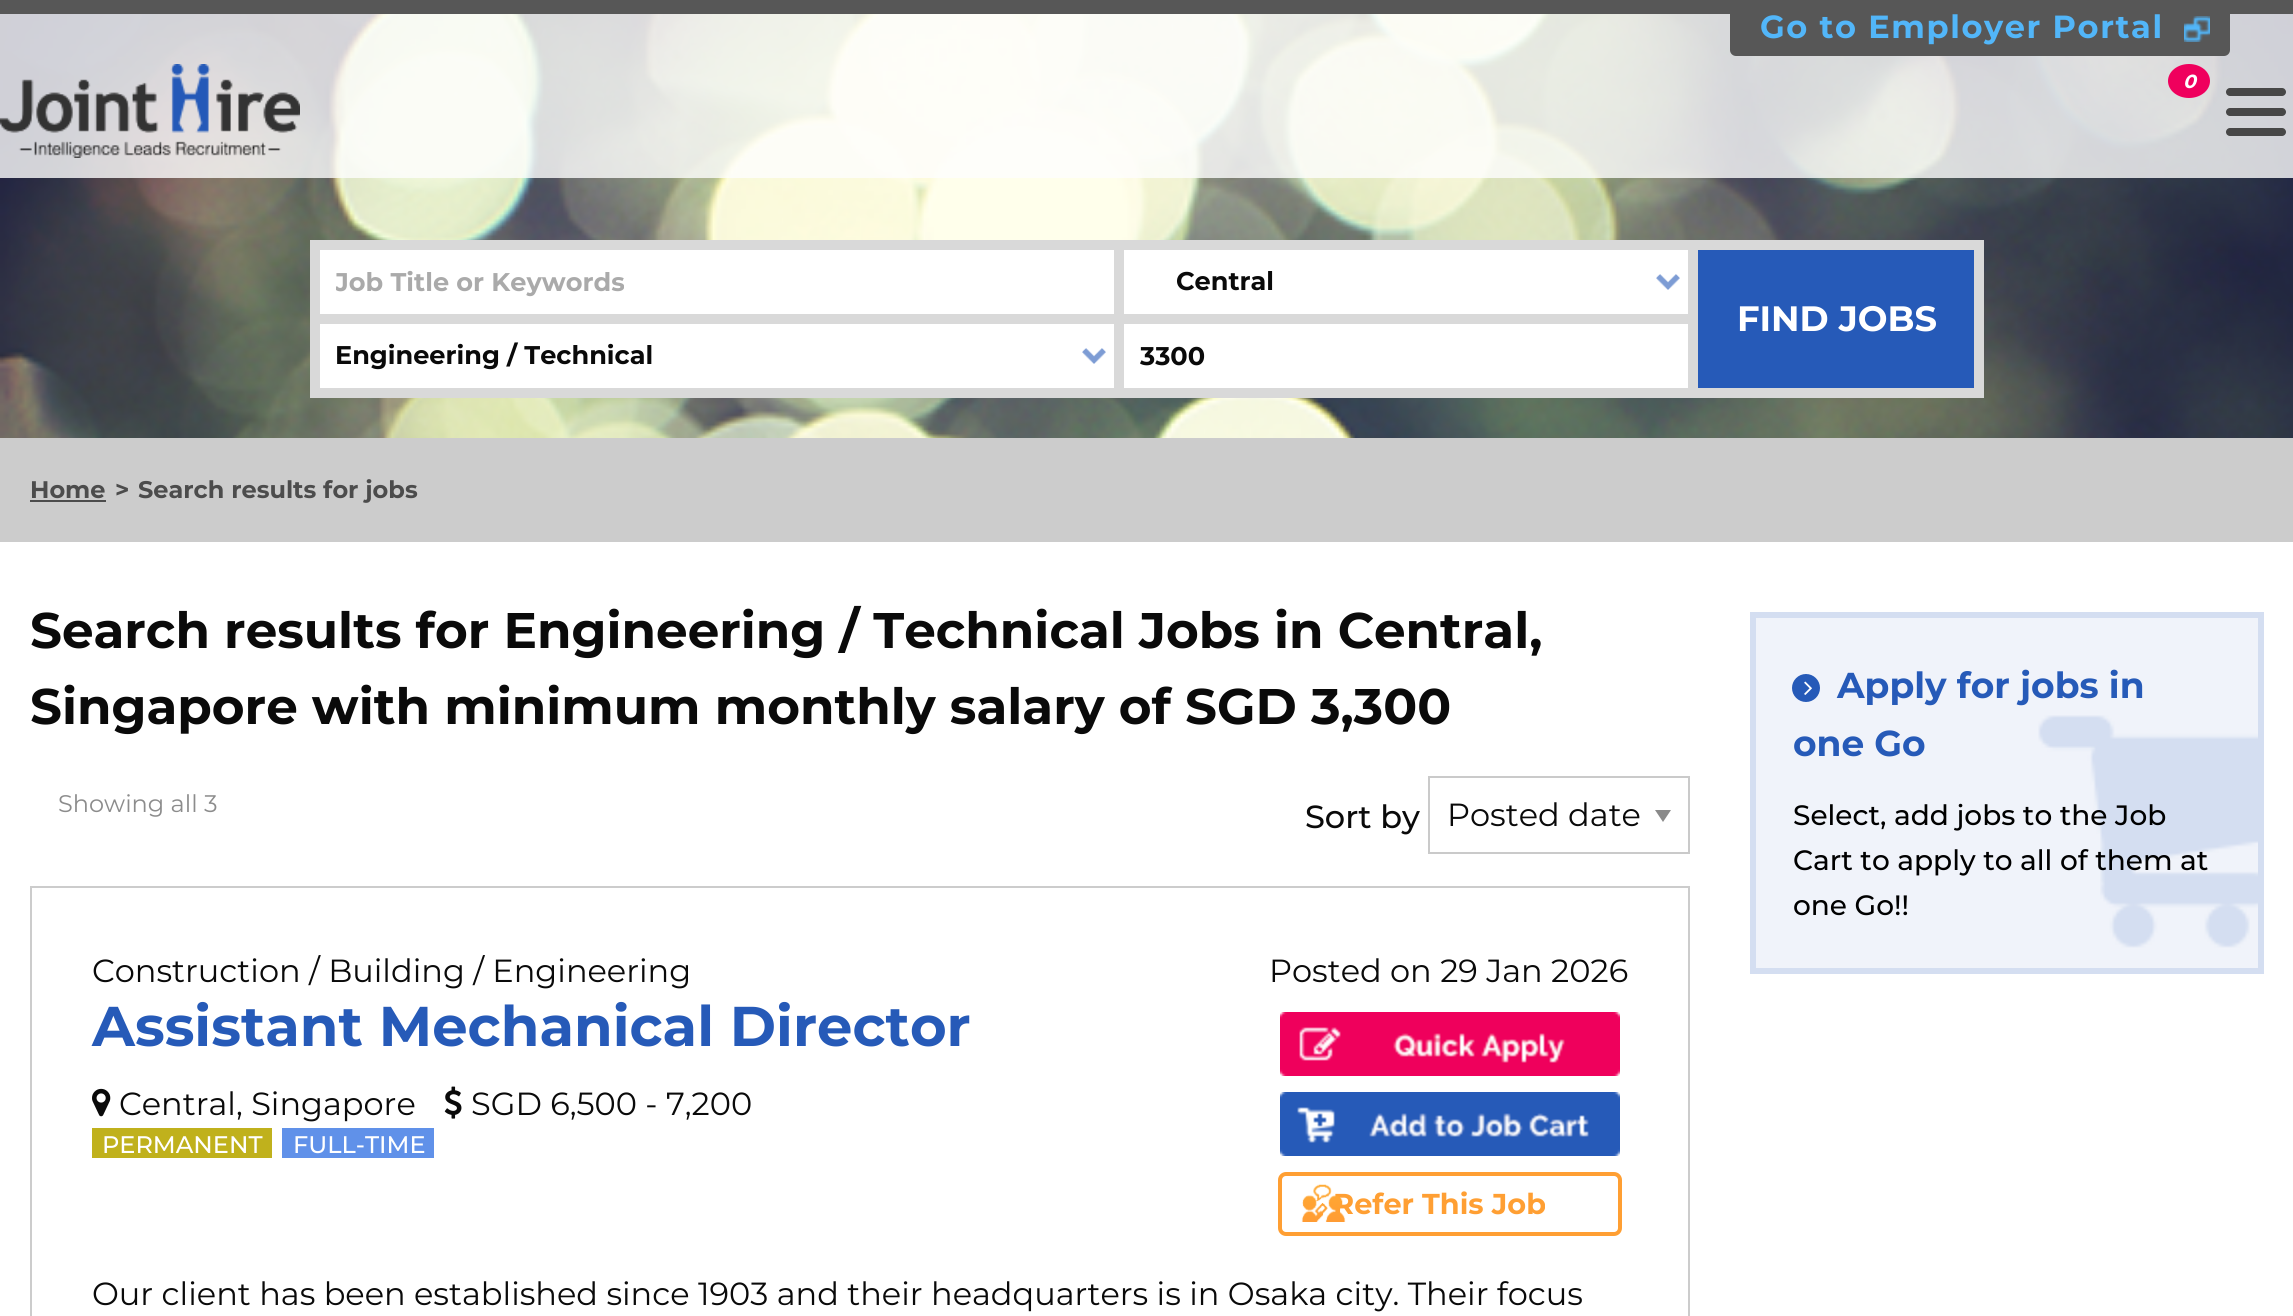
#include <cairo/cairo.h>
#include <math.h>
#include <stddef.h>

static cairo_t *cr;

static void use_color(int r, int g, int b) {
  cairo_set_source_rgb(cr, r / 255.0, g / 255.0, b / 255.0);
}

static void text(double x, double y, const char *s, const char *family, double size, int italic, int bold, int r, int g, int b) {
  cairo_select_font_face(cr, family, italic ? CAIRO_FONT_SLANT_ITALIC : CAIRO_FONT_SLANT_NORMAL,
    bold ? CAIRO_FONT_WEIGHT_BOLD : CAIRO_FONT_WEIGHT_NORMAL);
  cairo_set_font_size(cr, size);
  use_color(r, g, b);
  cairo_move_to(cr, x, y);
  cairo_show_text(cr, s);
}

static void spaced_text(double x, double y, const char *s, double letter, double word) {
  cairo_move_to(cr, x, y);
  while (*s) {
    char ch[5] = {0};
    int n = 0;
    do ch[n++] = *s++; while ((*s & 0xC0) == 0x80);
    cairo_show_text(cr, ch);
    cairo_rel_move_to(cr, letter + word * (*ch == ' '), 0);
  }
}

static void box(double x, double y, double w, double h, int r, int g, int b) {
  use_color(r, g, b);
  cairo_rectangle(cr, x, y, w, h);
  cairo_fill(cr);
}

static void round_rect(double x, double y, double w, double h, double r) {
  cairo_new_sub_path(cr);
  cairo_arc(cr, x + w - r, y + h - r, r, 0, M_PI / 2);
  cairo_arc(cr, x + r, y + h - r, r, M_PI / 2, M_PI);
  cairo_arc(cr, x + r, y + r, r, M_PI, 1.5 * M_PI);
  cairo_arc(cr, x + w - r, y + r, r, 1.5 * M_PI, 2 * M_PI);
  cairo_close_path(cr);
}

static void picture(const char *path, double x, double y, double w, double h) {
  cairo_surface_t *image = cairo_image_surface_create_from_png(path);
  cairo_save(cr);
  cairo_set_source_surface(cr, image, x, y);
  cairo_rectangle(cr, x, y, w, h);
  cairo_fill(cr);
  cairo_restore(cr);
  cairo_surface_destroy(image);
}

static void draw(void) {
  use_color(255, 255, 255);
  cairo_paint(cr);
  picture("img_01.png", 0, 14, 2293, 424);
  box(0, 0, 2293, 14, 87, 87, 87);
  cairo_set_source_rgba(cr, 0.996, 0.996, 0.996, 0.8);
  cairo_rectangle(cr, 0, 14, 2293, 164);
  cairo_fill(cr);
  use_color(87, 87, 87);
  round_rect(1730, 0, 500, 56, 6);
  cairo_fill(cr);
  picture("img_02.png", 2184, 16, 26, 26);
  picture("img_03.png", 0, 64, 300, 94);
  use_color(239, 0, 93);
  cairo_new_path(cr);
  cairo_move_to(cr, 2189, 64);
  cairo_curve_to(cr, 2200.5, 64, 2210, 71.5, 2210, 81);
  cairo_curve_to(cr, 2210, 90.5, 2200.5, 98, 2189, 98);
  cairo_curve_to(cr, 2177.5, 98, 2168, 90.5, 2168, 81);
  cairo_curve_to(cr, 2168, 71.5, 2177.5, 64, 2189, 64);
  cairo_close_path(cr);
  cairo_fill(cr);
  use_color(71, 71, 71);
  round_rect(2226, 128, 60, 8, 4);
  cairo_fill(cr);
  round_rect(2226, 108, 60, 8, 4);
  cairo_fill(cr);
  round_rect(2226, 88, 60, 8, 4);
  cairo_fill(cr);
  box(310, 240, 1674, 158, 217, 217, 217);
  box(320, 250, 794, 64, 255, 255, 255);
  box(1124, 250, 564, 64, 255, 255, 255);
  picture("img_04.png", 1656, 274, 24, 16);
  box(320, 324, 794, 64, 255, 255, 255);
  picture("img_04.png", 1082, 348, 24, 16);
  box(1124, 324, 564, 64, 255, 255, 255);
  box(1698, 250, 276, 138, 38, 90, 184);
  box(0, 438, 2293, 104, 204, 204, 204);
  box(30, 500, 76, 2, 76, 76, 76);
  use_color(138, 138, 138);
  cairo_new_path(cr);
  cairo_move_to(cr, 1655, 810);
  cairo_line_to(cr, 1671, 810);
  cairo_line_to(cr, 1663, 822);
  cairo_close_path(cr);
  cairo_fill(cr);
  cairo_rectangle(cr, 1429, 777, 260, 76);
  use_color(202, 202, 202);
  cairo_stroke(cr);
  cairo_rectangle(cr, 31, 887, 1658, 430);
  use_color(204, 204, 204);
  cairo_stroke(cr);
  picture("img_05.png", 92, 1088, 19, 29);
  picture("img_06.png", 444, 1086, 18, 33);
  box(92, 1128, 180, 30, 192, 177, 28);
  box(282, 1128, 152, 30, 96, 145, 233);
  picture("img_07.png", 1280, 1012, 340, 64);
  picture("img_08.png", 1280, 1092, 340, 64);
  round_rect(1280, 1174, 340, 60, 6);
  use_color(255, 159, 51);
  cairo_set_line_width(cr, 4);
  cairo_stroke(cr);
  box(1756, 618, 502, 350, 240, 243, 250);
  picture("img_10.png", 2038, 715, 220, 233);
  cairo_rectangle(cr, 1753, 615, 508, 356);
  use_color(212, 222, 241);
  cairo_set_line_width(cr, 6);
  cairo_stroke(cr);
  use_color(38, 90, 184);
  cairo_arc(cr, 1806, 688, 14, 0, 2 * M_PI);
  cairo_fill(cr);
  picture("img_11.png", 1804, 681, 8, 14);
  cairo_select_font_face(cr, "Montserrat", CAIRO_FONT_SLANT_NORMAL, CAIRO_FONT_WEIGHT_BOLD);
  cairo_set_font_size(cr, 32);
  use_color(82, 182, 249);
  spaced_text(1760, 38, "Go to Employer Portal", 1.6, 0);
  text(2183, 88, "0", "Montserrat", 19, 1, 1, 255, 255, 255);
  cairo_save(cr);
  cairo_rectangle(cr, 336, 268, 754, 30);
  cairo_clip(cr);
  text(335, 291, "Job Title or Keywords", "Montserrat", 25.6, 0, 1, 170, 170, 170);
  cairo_restore(cr);
  text(1176, 290, "Central", "Montserrat", 25.6, 0, 1, 10, 10, 10);
  text(335, 364, "Engineering / Technical", "Montserrat", 25.6, 0, 1, 10, 10, 10);
  text(1140, 365, "3300", "Montserrat", 25.6, 0, 1, 10, 10, 10);
  text(1737, 331, "FIND JOBS", "Montserrat", 35.25, 0, 1, 255, 255, 255);
  text(30, 498, "Home", "Montserrat", 24, 0, 1, 76, 76, 76);
  text(115, 498, ">", "Montserrat", 24, 0, 1, 76, 76, 76);
  text(138, 498, "Search results for jobs", "Montserrat", 24, 0, 1, 76, 76, 76);
  text(30, 648, "Search results for Engineering / Technical Jobs in Central,", "Montserrat", 50, 0, 1, 10, 10, 10);
  text(30, 724, "Singapore with minimum monthly salary of SGD 3,300", "Montserrat", 50, 0, 1, 10, 10, 10);
  text(58, 812, "Showing all 3", "Montserrat", 24, 0, 0, 140, 140, 140);
  text(1305, 828, "Sort by", "Montserrat Medium", 32, 0, 0, 10, 10, 10);
  text(1447, 826, "Posted date", "Montserrat", 32, 0, 0, 10, 10, 10);
  text(92, 982, "Construction / Building / Engineering", "Montserrat", 32, 0, 0, 10, 10, 10);
  text(1269, 982, "Posted on 29 Jan 2026", "Montserrat", 32, 0, 0, 10, 10, 10);
  text(92, 1046, "Assistant Mechanical Director", "Montserrat", 56, 0, 1, 38, 90, 184);
  text(119, 1115, "Central, Singapore", "Montserrat", 32, 0, 0, 10, 10, 10);
  text(471, 1115, "SGD 6,500 - 7,200", "Montserrat", 32, 0, 0, 10, 10, 10);
  text(102, 1153, "PERMANENT", "Montserrat Medium", 24, 0, 0, 255, 255, 255);
  text(293, 1153, "FULL-TIME", "Montserrat Medium", 24, 0, 0, 255, 255, 255);
  text(1333, 1214, "Refer This Job", "Montserrat", 28.75, 0, 1, 255, 159, 51);
  picture("img_09.png", 1301, 1184, 45, 38);
  text(92, 1305, "Our client has been established since 1903 and their headquarters is in Osaka city. Their focus", "Montserrat", 32, 0, 0, 10, 10, 10);
  text(1837, 698, "Apply for jobs in", "Montserrat", 36, 0, 1, 38, 90, 184);
  text(1793, 756, "one Go", "Montserrat", 36, 0, 1, 38, 90, 184);
  text(1793, 825, "Select, add jobs to the Job", "Montserrat Medium", 28, 0, 0, 0, 0, 0);
  text(1793, 870, "Cart to apply to all of them at", "Montserrat Medium", 28, 0, 0, 0, 0, 0);
  text(1793, 915, "one Go!!", "Montserrat Medium", 28, 0, 0, 0, 0, 0);
}

int main(void) {
  cairo_surface_t *surface = cairo_image_surface_create(CAIRO_FORMAT_RGB24, 2293, 1316);
  cr = cairo_create(surface);
  cairo_font_options_t *options = cairo_font_options_create();
  cairo_font_options_set_hint_metrics(options, CAIRO_HINT_METRICS_OFF);
  cairo_font_options_set_hint_style(options, CAIRO_HINT_STYLE_NONE);
  cairo_set_font_options(cr, options);
  cairo_set_miter_limit(cr, 4);
  draw();
  cairo_surface_write_to_png(surface, "out.png");
  cairo_font_options_destroy(options);
  cairo_destroy(cr);
  cairo_surface_destroy(surface);
  return 0;
}
